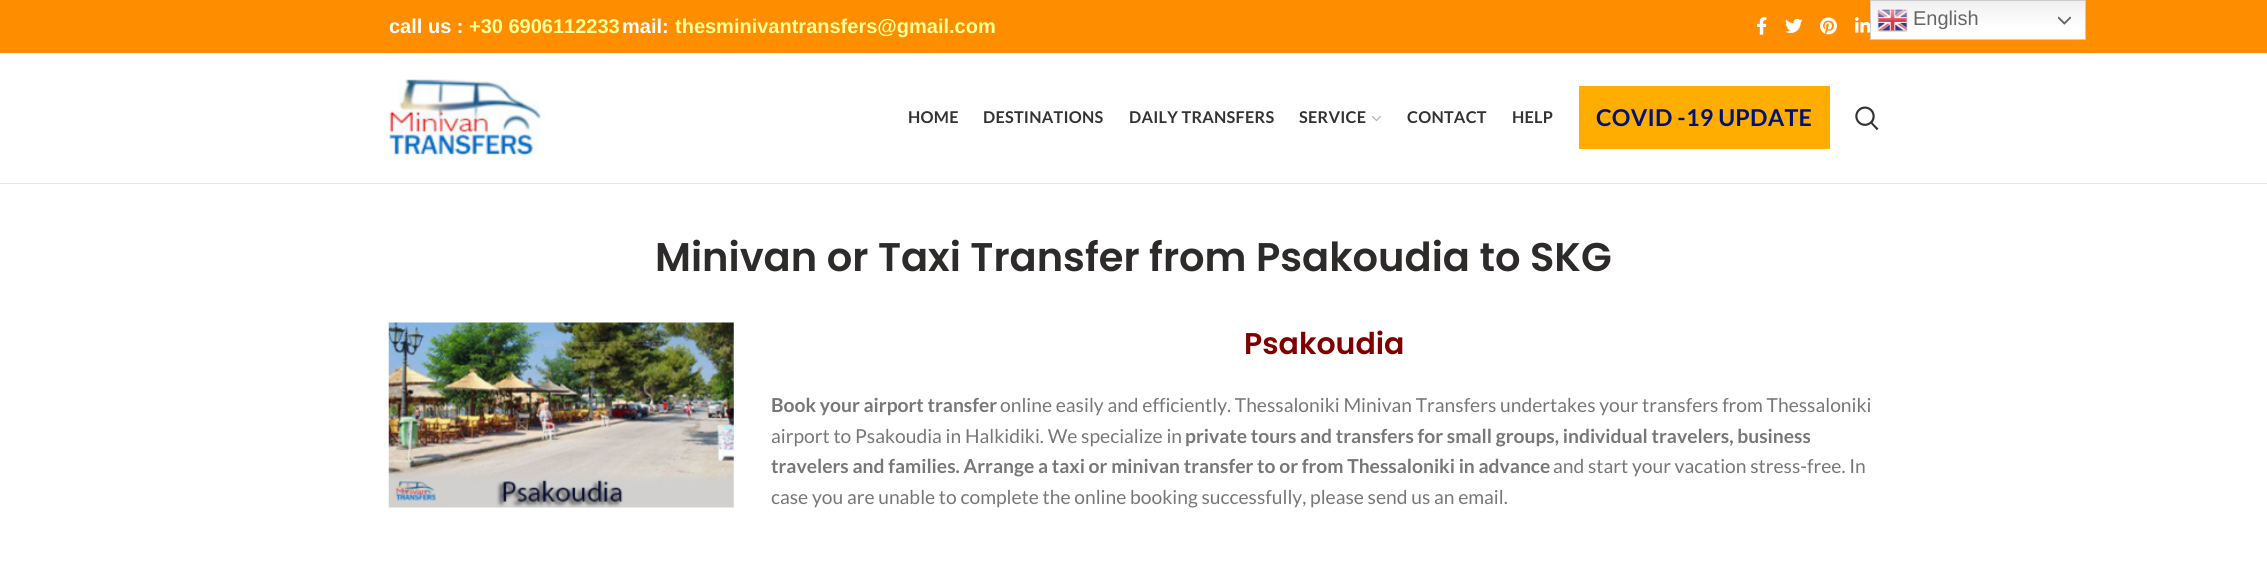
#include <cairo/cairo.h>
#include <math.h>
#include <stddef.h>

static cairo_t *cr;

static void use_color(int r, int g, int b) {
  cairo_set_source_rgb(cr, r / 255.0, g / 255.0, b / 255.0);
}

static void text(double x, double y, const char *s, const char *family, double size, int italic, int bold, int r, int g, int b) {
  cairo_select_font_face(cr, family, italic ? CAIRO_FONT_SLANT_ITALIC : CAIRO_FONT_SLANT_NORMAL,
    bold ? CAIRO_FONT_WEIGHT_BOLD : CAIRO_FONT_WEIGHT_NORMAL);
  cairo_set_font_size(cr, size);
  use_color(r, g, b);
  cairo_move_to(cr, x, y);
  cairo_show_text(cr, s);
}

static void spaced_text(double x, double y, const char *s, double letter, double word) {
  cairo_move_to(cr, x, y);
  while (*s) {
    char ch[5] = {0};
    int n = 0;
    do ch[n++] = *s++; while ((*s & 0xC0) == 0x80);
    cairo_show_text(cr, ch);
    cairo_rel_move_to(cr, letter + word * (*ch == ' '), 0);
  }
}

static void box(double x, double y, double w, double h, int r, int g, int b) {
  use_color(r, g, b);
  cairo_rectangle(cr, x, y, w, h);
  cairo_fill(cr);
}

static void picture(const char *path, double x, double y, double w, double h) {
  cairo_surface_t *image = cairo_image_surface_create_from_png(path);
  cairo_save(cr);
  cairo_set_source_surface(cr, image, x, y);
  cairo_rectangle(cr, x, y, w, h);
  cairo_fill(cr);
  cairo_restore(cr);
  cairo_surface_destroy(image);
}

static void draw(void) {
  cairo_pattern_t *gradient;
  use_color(255, 255, 255);
  cairo_paint(cr);
  box(0, 0, 2267, 53, 255, 141, 0);
  picture("img_01.png", 1757, 17, 10, 18);
  picture("img_02.png", 1785, 18, 18, 16);
  picture("img_03.png", 1820, 17, 17, 18);
  picture("img_04.png", 1855, 17, 15, 16);
  box(0, 183, 2267, 1, 230, 230, 230);
  picture("img_05.png", 389, 79, 156, 77);
  picture("img_06.png", 1372, 116, 9, 6);
  box(1579, 86, 251, 63, 255, 174, 0);
  picture("img_07.png", 1855, 106, 24, 25);
  picture("img_08.png", 388, 322, 346, 186);
  gradient = cairo_pattern_create_linear(1978, 0, 1978, 40);
  cairo_pattern_add_color_stop_rgba(gradient, 0, 0.937, 0.937, 0.937, 1);
  cairo_pattern_add_color_stop_rgba(gradient, 0.7, 1, 1, 1, 1);
  cairo_set_source(cr, gradient);
  cairo_pattern_destroy(gradient);
  cairo_rectangle(cr, 1871, 1, 214, 38);
  cairo_fill(cr);
  cairo_rectangle(cr, 1870.5, 0.5, 215, 39);
  use_color(204, 204, 204);
  cairo_set_line_width(cr, 1);
  cairo_stroke(cr);
  picture("img_09.png", 1877, 9, 31, 23);
  picture("img_10.png", 2058, 16, 13, 9);
  text(389, 33, "call us :", "Liberation Sans", 20, 0, 1, 255, 255, 255);
  text(469, 33, "+30 6906112233", "Liberation Sans", 20, 0, 1, 255, 255, 153);
  text(622, 33, "mail:", "Liberation Sans", 20, 0, 1, 255, 255, 255);
  text(675, 33, "thesminivantransfers@gmail.com", "Liberation Sans", 20, 0, 1, 255, 255, 153);
  cairo_select_font_face(cr, "Lato", CAIRO_FONT_SLANT_NORMAL, CAIRO_FONT_WEIGHT_BOLD);
  cairo_set_font_size(cr, 16.25);
  use_color(51, 51, 51);
  spaced_text(908, 123, "HOME", 0.25, 0);
  spaced_text(983, 123, "DESTINATIONS", 0.25, 0);
  spaced_text(1129, 123, "DAILY TRANSFERS", 0.25, 0);
  spaced_text(1299, 123, "SERVICE", 0.25, 0);
  spaced_text(1407, 123, "CONTACT", 0.25, 0);
  spaced_text(1512, 123, "HELP", 0.25, 0);
  cairo_set_font_size(cr, 23.25);
  use_color(1, 18, 117);
  spaced_text(1596, 126, "COVID -19 UPDATE", 0.25, 0);
  text(655, 271, "Minivan or Taxi Transfer from Psakoudia to SKG", "Poppins SemiBold", 40, 0, 0, 45, 42, 42);
  text(1244, 354, "Psakoudia", "Poppins SemiBold", 30, 0, 0, 128, 0, 0);
  text(771, 412, "Book your airport transfer", "Lato", 19.25, 0, 1, 119, 119, 119);
  text(1000, 412, "online easily and efficiently. Thessaloniki Minivan Transfers undertakes your transfers from Thessaloniki", "Lato", 19.25, 0, 0, 119, 119, 119);
  text(771, 443, "airport to Psakoudia in Halkidiki. We specialize in", "Lato", 19.25, 0, 0, 119, 119, 119);
  text(1185, 443, "private tours and transfers for small groups, individual travelers, business", "Lato", 19.25, 0, 1, 119, 119, 119);
  text(771, 473, "travelers and families. Arrange a taxi or minivan transfer to or from Thessaloniki in advance", "Lato", 19.25, 0, 1, 119, 119, 119);
  text(1553, 473, "and start your vacation stress-free. In", "Lato", 19.25, 0, 0, 119, 119, 119);
  text(771, 504, "case you are unable to complete the online booking successfully, please send us an email.", "Lato", 19.25, 0, 0, 119, 119, 119);
  text(1913, 25, "English", "Liberation Sans", 20, 0, 0, 102, 102, 102);
}

int main(void) {
  cairo_surface_t *surface = cairo_image_surface_create(CAIRO_FORMAT_RGB24, 2267, 584);
  cr = cairo_create(surface);
  cairo_font_options_t *options = cairo_font_options_create();
  cairo_font_options_set_hint_metrics(options, CAIRO_HINT_METRICS_OFF);
  cairo_font_options_set_hint_style(options, CAIRO_HINT_STYLE_NONE);
  cairo_set_font_options(cr, options);
  cairo_set_miter_limit(cr, 4);
  draw();
  cairo_surface_write_to_png(surface, "out.png");
  cairo_font_options_destroy(options);
  cairo_destroy(cr);
  cairo_surface_destroy(surface);
  return 0;
}
